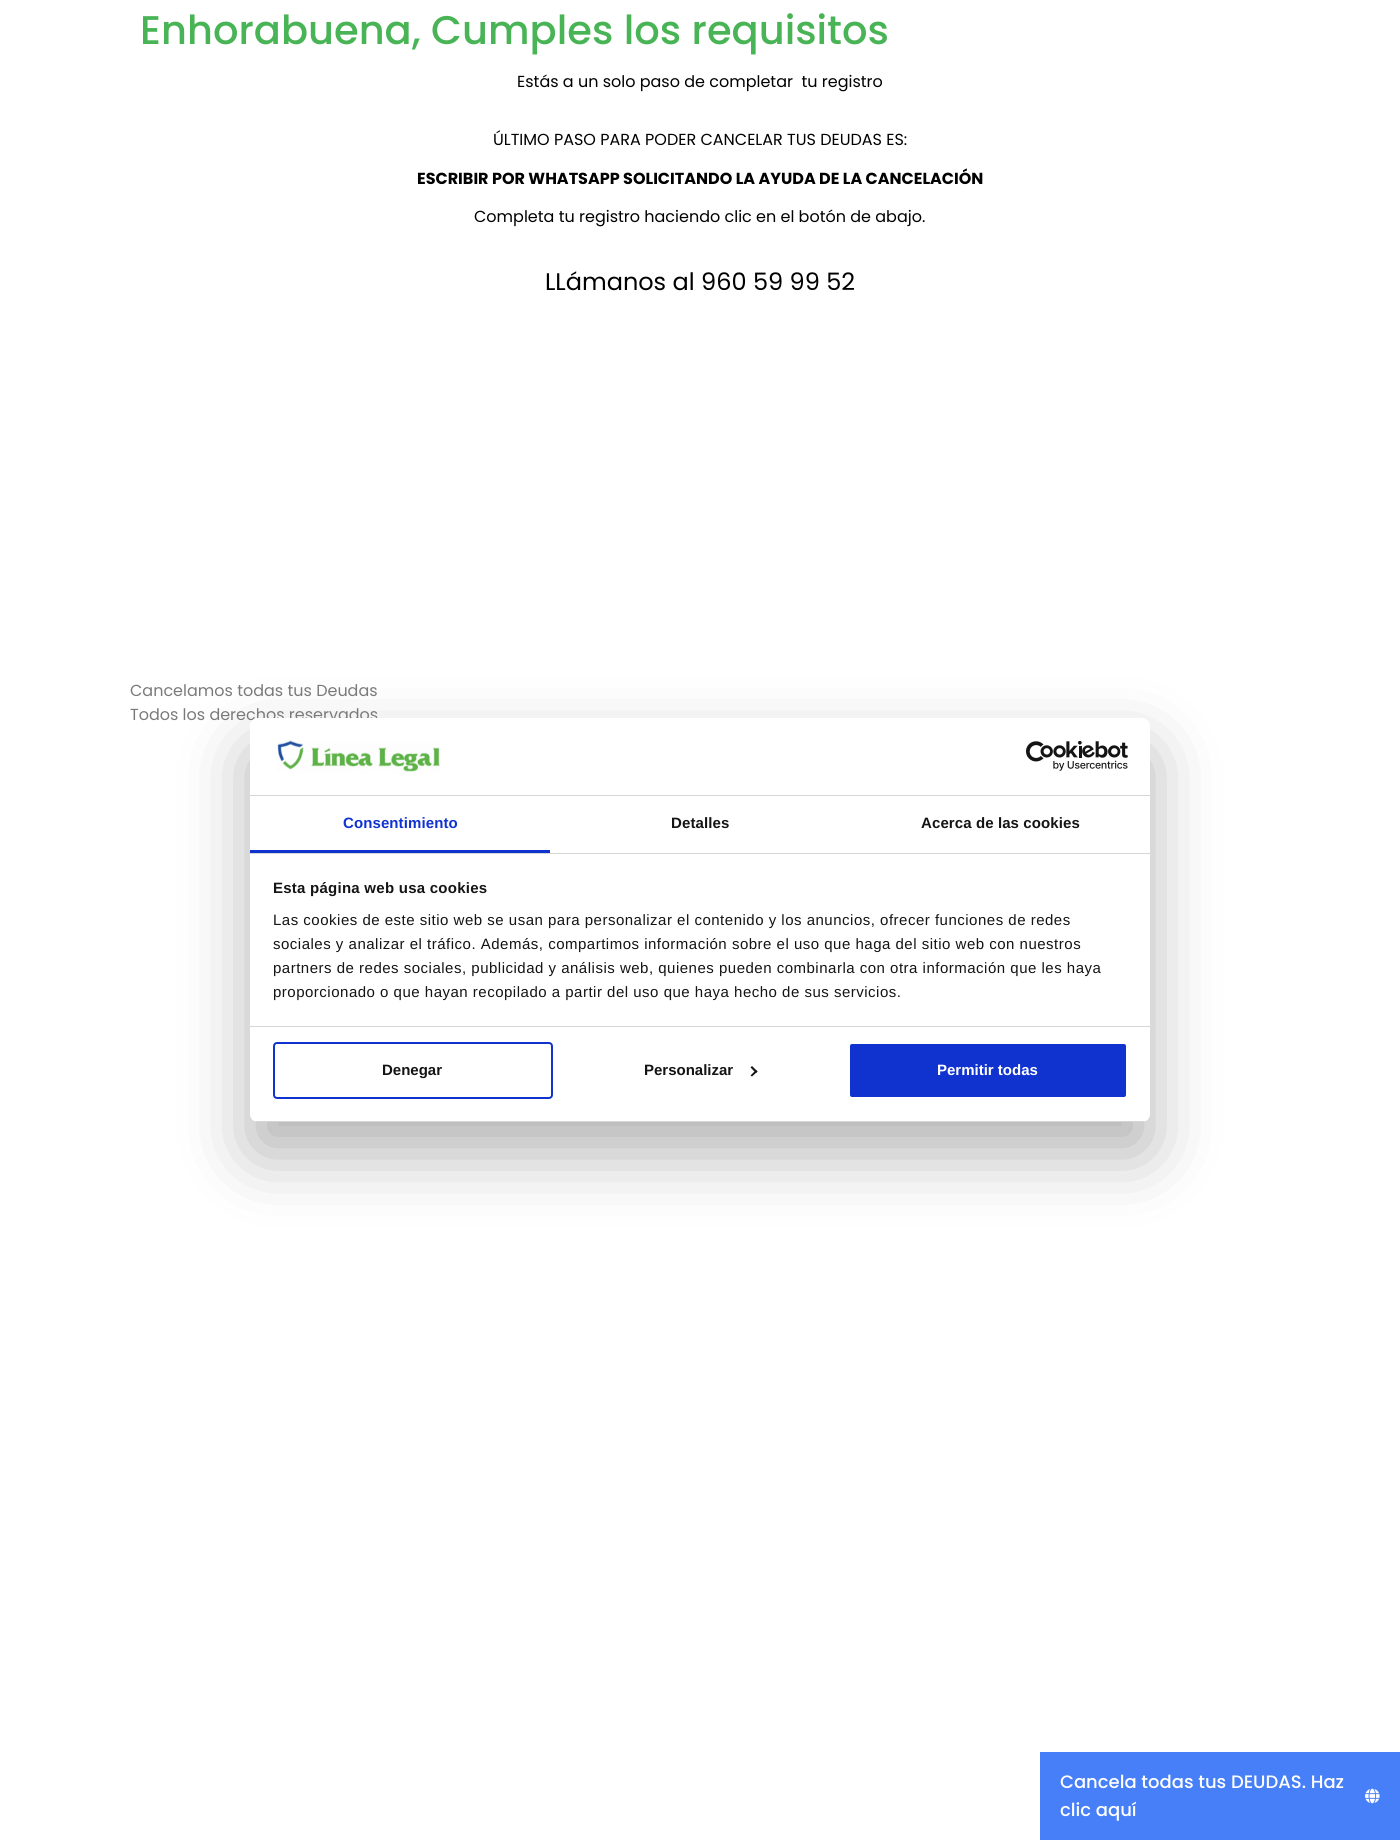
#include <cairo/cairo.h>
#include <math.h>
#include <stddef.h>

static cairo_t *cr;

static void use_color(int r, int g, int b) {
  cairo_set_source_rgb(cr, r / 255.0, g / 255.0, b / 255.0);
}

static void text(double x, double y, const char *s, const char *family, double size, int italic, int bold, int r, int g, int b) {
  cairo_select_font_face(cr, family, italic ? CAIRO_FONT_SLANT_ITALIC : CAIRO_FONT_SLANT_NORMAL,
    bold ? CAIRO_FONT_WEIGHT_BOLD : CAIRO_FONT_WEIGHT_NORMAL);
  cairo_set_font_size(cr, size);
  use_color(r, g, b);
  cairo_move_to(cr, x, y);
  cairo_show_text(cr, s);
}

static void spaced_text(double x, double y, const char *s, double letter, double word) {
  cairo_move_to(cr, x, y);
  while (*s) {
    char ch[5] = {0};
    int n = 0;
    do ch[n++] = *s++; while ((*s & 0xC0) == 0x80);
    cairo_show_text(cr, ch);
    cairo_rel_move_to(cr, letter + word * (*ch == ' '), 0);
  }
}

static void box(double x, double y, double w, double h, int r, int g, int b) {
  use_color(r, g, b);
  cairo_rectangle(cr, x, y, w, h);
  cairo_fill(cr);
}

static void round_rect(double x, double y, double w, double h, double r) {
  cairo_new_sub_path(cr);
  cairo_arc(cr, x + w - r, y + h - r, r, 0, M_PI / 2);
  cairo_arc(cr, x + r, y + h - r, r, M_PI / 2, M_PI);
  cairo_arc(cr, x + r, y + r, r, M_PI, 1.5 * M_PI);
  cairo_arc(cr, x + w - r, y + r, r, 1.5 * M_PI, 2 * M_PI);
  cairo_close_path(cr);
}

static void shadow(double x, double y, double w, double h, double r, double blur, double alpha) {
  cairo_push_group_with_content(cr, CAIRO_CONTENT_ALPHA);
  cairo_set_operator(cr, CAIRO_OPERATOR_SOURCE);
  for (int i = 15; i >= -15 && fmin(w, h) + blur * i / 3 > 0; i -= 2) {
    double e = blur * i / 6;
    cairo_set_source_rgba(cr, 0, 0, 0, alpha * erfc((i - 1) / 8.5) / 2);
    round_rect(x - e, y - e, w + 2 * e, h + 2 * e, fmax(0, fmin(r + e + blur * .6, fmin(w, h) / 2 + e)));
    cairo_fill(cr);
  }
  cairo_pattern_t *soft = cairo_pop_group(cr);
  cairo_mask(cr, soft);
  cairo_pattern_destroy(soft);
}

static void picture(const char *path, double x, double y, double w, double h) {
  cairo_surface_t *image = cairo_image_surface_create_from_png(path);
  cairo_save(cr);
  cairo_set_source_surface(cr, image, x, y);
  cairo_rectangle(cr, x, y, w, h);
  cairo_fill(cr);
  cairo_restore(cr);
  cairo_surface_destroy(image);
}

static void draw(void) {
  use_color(255, 255, 255);
  cairo_paint(cr);
  use_color(0, 0, 0);
  shadow(250, 750, 900, 404, 8, 34, 0.3);
  box(1040, 1752, 360, 88, 70, 127, 247);
  picture("img_03.png", 1365, 1788, 15, 16);
  text(140, 44, "Enhorabuena, Cumples los requisitos", "Poppins Medium", 40, 0, 0, 73, 180, 86);
  text(517, 87, "Estás a un solo paso de completar  tu registro", "Poppins", 16, 0, 0, 0, 0, 0);
  text(493, 145, "ÚLTIMO PASO PARA PODER CANCELAR TUS DEUDAS ES:", "Poppins", 16, 0, 0, 0, 0, 0);
  text(417, 184, "ESCRIBIR POR WHATSAPP SOLICITANDO LA AYUDA DE LA CANCELACIÓN", "Poppins", 16, 0, 1, 0, 0, 0);
  text(474, 222, "Completa tu registro haciendo clic en el botón de abajo.", "Poppins", 16, 0, 0, 0, 0, 0);
  text(545, 290, "LLámanos al 960 59 99 52", "Poppins", 24, 0, 0, 0, 0, 0);
  text(130, 696, "Cancelamos todas tus Deudas", "Poppins", 16, 0, 0, 122, 122, 122);
  text(130, 720, "Todos los derechos reservados", "Poppins", 16, 0, 0, 122, 122, 122);
  use_color(255, 255, 255);
  round_rect(250, 718, 900, 404, 8);
  cairo_fill(cr);
  box(250, 795, 900, 1, 214, 214, 214);
  picture("img_01.png", 277, 740, 163, 32);
  picture("img_02.png", 1026, 741, 102, 30);
  box(250, 853, 900, 1, 214, 214, 214);
  box(250, 850, 300, 3, 16, 50, 207);
  cairo_select_font_face(cr, "Liberation Sans", CAIRO_FONT_SLANT_NORMAL, CAIRO_FONT_WEIGHT_BOLD);
  cairo_set_font_size(cr, 15);
  spaced_text(343, 828, "Consentimiento", 0.1, 0);
  use_color(20, 20, 20);
  spaced_text(671, 828, "Detalles", 0.1, 0);
  spaced_text(921, 828, "Acerca de las cookies", 0.1, 0);
  box(250, 1026, 900, 1, 214, 214, 214);
  use_color(20, 20, 20);
  spaced_text(273, 893, "Esta página web usa cookies", 0.25, 0);
  cairo_select_font_face(cr, "Liberation Sans", CAIRO_FONT_SLANT_NORMAL, CAIRO_FONT_WEIGHT_NORMAL);
  spaced_text(273, 925, "Las cookies de este sitio web se usan para personalizar el contenido y los anuncios, ofrecer funciones de redes", 0.5, 0);
  spaced_text(273, 949, "sociales y analizar el tráfico. Además, compartimos información sobre el uso que haga del sitio web con nuestros", 0.5, 0);
  spaced_text(273, 973, "partners de redes sociales, publicidad y análisis web, quienes pueden combinarla con otra información que les haya", 0.5, 0);
  spaced_text(273, 997, "proporcionado o que hayan recopilado a partir del uso que haya hecho de sus servicios.", 0.5, 0);
  cairo_save(cr);
  round_rect(250, 718, 900, 404, 8);
  cairo_clip(cr);
  box(250, 1121, 900, 1, 214, 214, 214);
  cairo_restore(cr);
  round_rect(274, 1043, 278, 55, 3);
  use_color(16, 50, 207);
  cairo_stroke(cr);
  text(382, 1075, "Denegar", "Liberation Sans", 15, 0, 1, 20, 20, 20);
  text(644, 1075, "Personalizar", "Liberation Sans", 15, 0, 1, 20, 20, 20);
  cairo_new_path(cr);
  cairo_move_to(cr, 752, 1066);
  cairo_line_to(cr, 757.5, 1071.5);
  cairo_line_to(cr, 756, 1073);
  cairo_line_to(cr, 750.5, 1067.5);
  cairo_close_path(cr);
  cairo_fill(cr);
  cairo_new_path(cr);
  cairo_move_to(cr, 756, 1070);
  cairo_line_to(cr, 757.5, 1071.5);
  cairo_line_to(cr, 752, 1076.5);
  cairo_line_to(cr, 750.5, 1075.5);
  cairo_close_path(cr);
  cairo_fill(cr);
  use_color(16, 50, 207);
  round_rect(849, 1043, 278, 55, 3);
  cairo_fill_preserve(cr);
  use_color(255, 255, 255);
  cairo_stroke(cr);
  text(937, 1075, "Permitir todas", "Liberation Sans", 15, 0, 1, 255, 255, 255);
  text(1060, 1788, "Cancela todas tus DEUDAS. Haz", "Poppins Medium", 18, 0, 0, 255, 255, 255);
  text(1060, 1816, "clic aquí", "Poppins Medium", 18, 0, 0, 255, 255, 255);
}

int main(void) {
  cairo_surface_t *surface = cairo_image_surface_create(CAIRO_FORMAT_RGB24, 1400, 1840);
  cr = cairo_create(surface);
  cairo_font_options_t *options = cairo_font_options_create();
  cairo_font_options_set_hint_metrics(options, CAIRO_HINT_METRICS_OFF);
  cairo_font_options_set_hint_style(options, CAIRO_HINT_STYLE_NONE);
  cairo_set_font_options(cr, options);
  cairo_set_miter_limit(cr, 4);
  draw();
  cairo_surface_write_to_png(surface, "out.png");
  cairo_font_options_destroy(options);
  cairo_destroy(cr);
  cairo_surface_destroy(surface);
  return 0;
}
